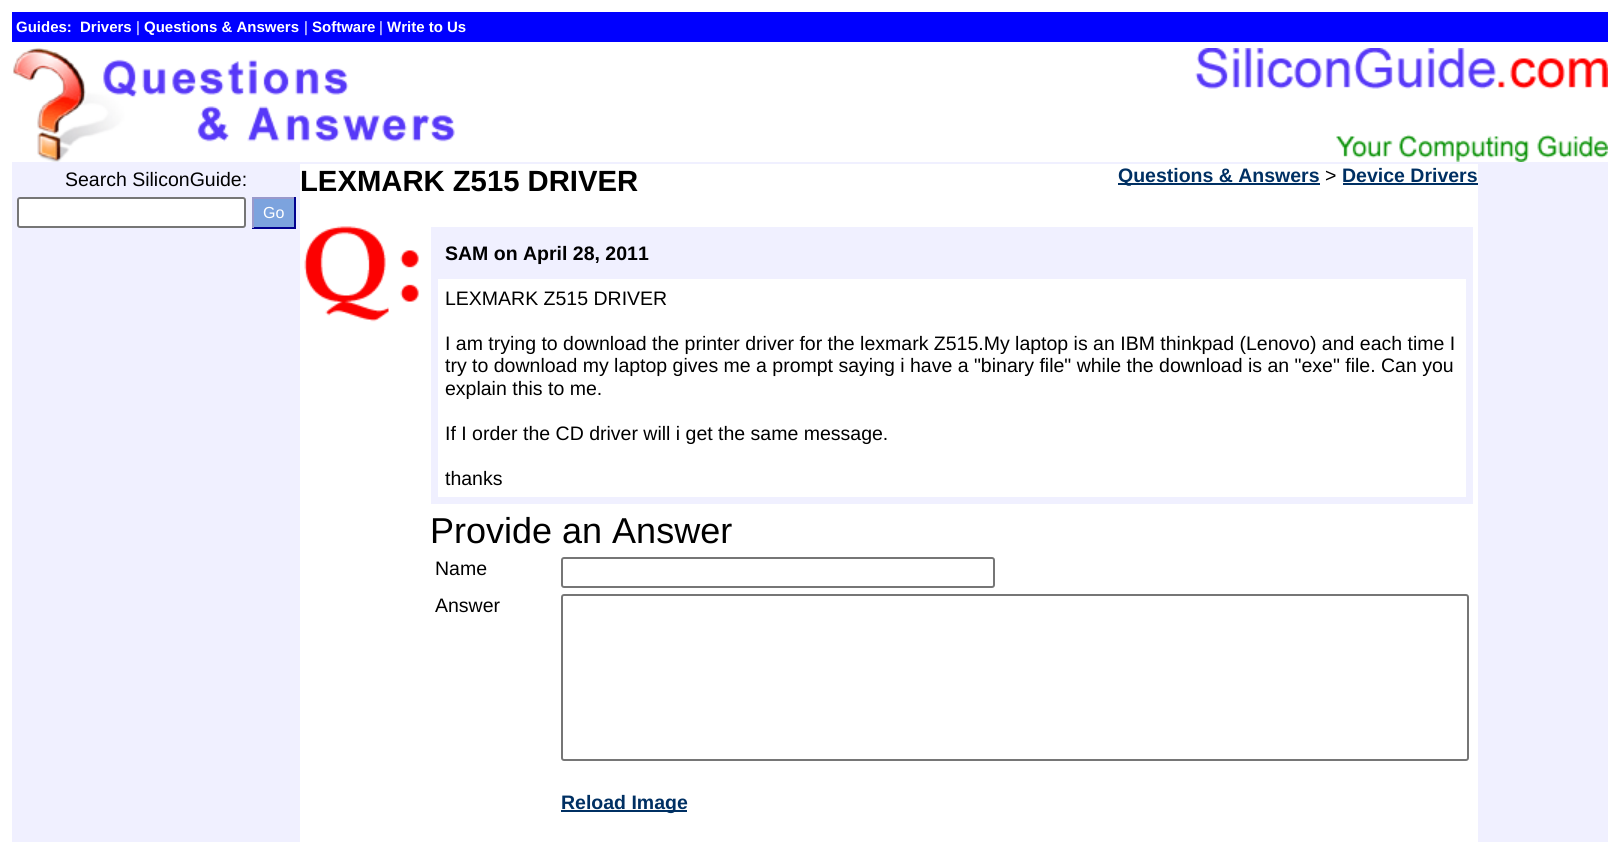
#include <cairo/cairo.h>
#include <math.h>
#include <stddef.h>

static cairo_t *cr;

static void use_color(int r, int g, int b) {
  cairo_set_source_rgb(cr, r / 255.0, g / 255.0, b / 255.0);
}

static void text(double x, double y, const char *s, const char *family, double size, int italic, int bold, int r, int g, int b) {
  cairo_select_font_face(cr, family, italic ? CAIRO_FONT_SLANT_ITALIC : CAIRO_FONT_SLANT_NORMAL,
    bold ? CAIRO_FONT_WEIGHT_BOLD : CAIRO_FONT_WEIGHT_NORMAL);
  cairo_set_font_size(cr, size);
  use_color(r, g, b);
  cairo_move_to(cr, x, y);
  cairo_show_text(cr, s);
}

static void box(double x, double y, double w, double h, int r, int g, int b) {
  use_color(r, g, b);
  cairo_rectangle(cr, x, y, w, h);
  cairo_fill(cr);
}

static void round_rect(double x, double y, double w, double h, double r) {
  cairo_new_sub_path(cr);
  cairo_arc(cr, x + w - r, y + h - r, r, 0, M_PI / 2);
  cairo_arc(cr, x + r, y + h - r, r, M_PI / 2, M_PI);
  cairo_arc(cr, x + r, y + r, r, M_PI, 1.5 * M_PI);
  cairo_arc(cr, x + w - r, y + r, r, 1.5 * M_PI, 2 * M_PI);
  cairo_close_path(cr);
}

static void picture(const char *path, double x, double y, double w, double h) {
  cairo_surface_t *image = cairo_image_surface_create_from_png(path);
  cairo_save(cr);
  cairo_set_source_surface(cr, image, x, y);
  cairo_rectangle(cr, x, y, w, h);
  cairo_fill(cr);
  cairo_restore(cr);
  cairo_surface_destroy(image);
}

static void draw(void) {
  use_color(255, 255, 255);
  cairo_paint(cr);
  box(12, 12, 1596, 30, 0, 0, 255);
  picture("img_01.png", 13, 48, 442, 114);
  picture("img_02.png", 1195, 48, 413, 114);
  box(12, 162, 1596, 2, 240, 240, 255);
  box(12, 164, 288, 678, 240, 240, 255);
  use_color(255, 255, 255);
  round_rect(18, 198, 227, 29, 2);
  cairo_fill_preserve(cr);
  use_color(118, 118, 118);
  cairo_stroke(cr);
  box(254, 199, 40, 28, 124, 163, 222);
  box(252, 197, 44, 2, 153, 153, 204);
  box(294, 197, 2, 31, 0, 0, 144);
  box(252, 227, 44, 2, 0, 0, 144);
  box(252, 197, 2, 31, 153, 153, 204);
  box(1118, 183, 202, 2, 0, 48, 99);
  box(1343, 183, 135, 2, 0, 48, 99);
  picture("img_03.png", 304, 226, 115, 96);
  box(431, 227, 1042, 277, 240, 240, 255);
  box(438, 279, 1028, 218, 255, 255, 255);
  round_rect(562, 558, 432, 29, 2);
  use_color(118, 118, 118);
  cairo_stroke(cr);
  round_rect(562, 595, 906, 165, 2);
  cairo_stroke(cr);
  box(561, 810, 126, 2, 0, 48, 99);
  box(1478, 164, 130, 678, 240, 240, 255);
  text(16, 32, "Guides:", "Liberation Sans", 15, 0, 1, 255, 255, 255);
  text(80, 32, "Drivers", "Liberation Sans", 15, 0, 1, 255, 255, 255);
  text(136, 32, "|", "Liberation Sans", 15, 0, 0, 255, 255, 255);
  text(144, 32, "Questions & Answers", "Liberation Sans", 15, 0, 1, 255, 255, 255);
  text(304, 32, "|", "Liberation Sans", 15, 0, 0, 255, 255, 255);
  text(312, 32, "Software", "Liberation Sans", 15, 0, 1, 255, 255, 255);
  text(379, 32, "|", "Liberation Sans", 15, 0, 0, 255, 255, 255);
  text(387, 32, "Write to Us", "Liberation Sans", 15, 0, 1, 255, 255, 255);
  text(65, 186, "Search SiliconGuide:", "Liberation Sans", 19.5, 0, 0, 0, 0, 0);
  text(263, 218, "Go", "Liberation Sans", 16, 0, 0, 255, 255, 255);
  text(300, 191, "LEXMARK Z515 DRIVER", "Liberation Sans", 29.25, 0, 1, 0, 0, 0);
  text(1118, 182, "Questions & Answers", "Liberation Sans", 19.5, 0, 1, 0, 48, 99);
  text(1325, 182, ">", "Liberation Sans", 19.5, 0, 0, 0, 0, 0);
  text(1342, 182, "Device Drivers", "Liberation Sans", 19.5, 0, 1, 0, 48, 99);
  text(445, 260, "SAM on April 28, 2011", "Liberation Sans", 19.5, 0, 1, 0, 0, 0);
  text(445, 305, "LEXMARK Z515 DRIVER", "Liberation Sans", 19.5, 0, 0, 0, 0, 0);
  text(445, 350, "I am trying to download the printer driver for the lexmark Z515.My laptop is an IBM thinkpad (Lenovo) and each time I", "Liberation Sans", 19.5, 0, 0, 0, 0, 0);
  text(445, 372, "try to download my laptop gives me a prompt saying i have a \"binary file\" while the download is an \"exe\" file. Can you", "Liberation Sans", 19.5, 0, 0, 0, 0, 0);
  text(445, 395, "explain this to me.", "Liberation Sans", 19.5, 0, 0, 0, 0, 0);
  text(445, 440, "If I order the CD driver will i get the same message.", "Liberation Sans", 19.5, 0, 0, 0, 0, 0);
  text(445, 485, "thanks", "Liberation Sans", 19.5, 0, 0, 0, 0, 0);
  text(430, 543, "Provide an Answer", "Liberation Sans", 36, 0, 0, 0, 0, 0);
  text(435, 575, "Name", "Liberation Sans", 19.5, 0, 0, 0, 0, 0);
  text(435, 612, "Answer", "Liberation Sans", 19.5, 0, 0, 0, 0, 0);
  text(561, 809, "Reload Image", "Liberation Sans", 19.5, 0, 1, 0, 48, 99);
}

int main(void) {
  cairo_surface_t *surface = cairo_image_surface_create(CAIRO_FORMAT_RGB24, 1620, 842);
  cr = cairo_create(surface);
  cairo_font_options_t *options = cairo_font_options_create();
  cairo_font_options_set_hint_metrics(options, CAIRO_HINT_METRICS_OFF);
  cairo_font_options_set_hint_style(options, CAIRO_HINT_STYLE_NONE);
  cairo_set_font_options(cr, options);
  cairo_set_miter_limit(cr, 4);
  draw();
  cairo_surface_write_to_png(surface, "out.png");
  cairo_font_options_destroy(options);
  cairo_destroy(cr);
  cairo_surface_destroy(surface);
  return 0;
}
